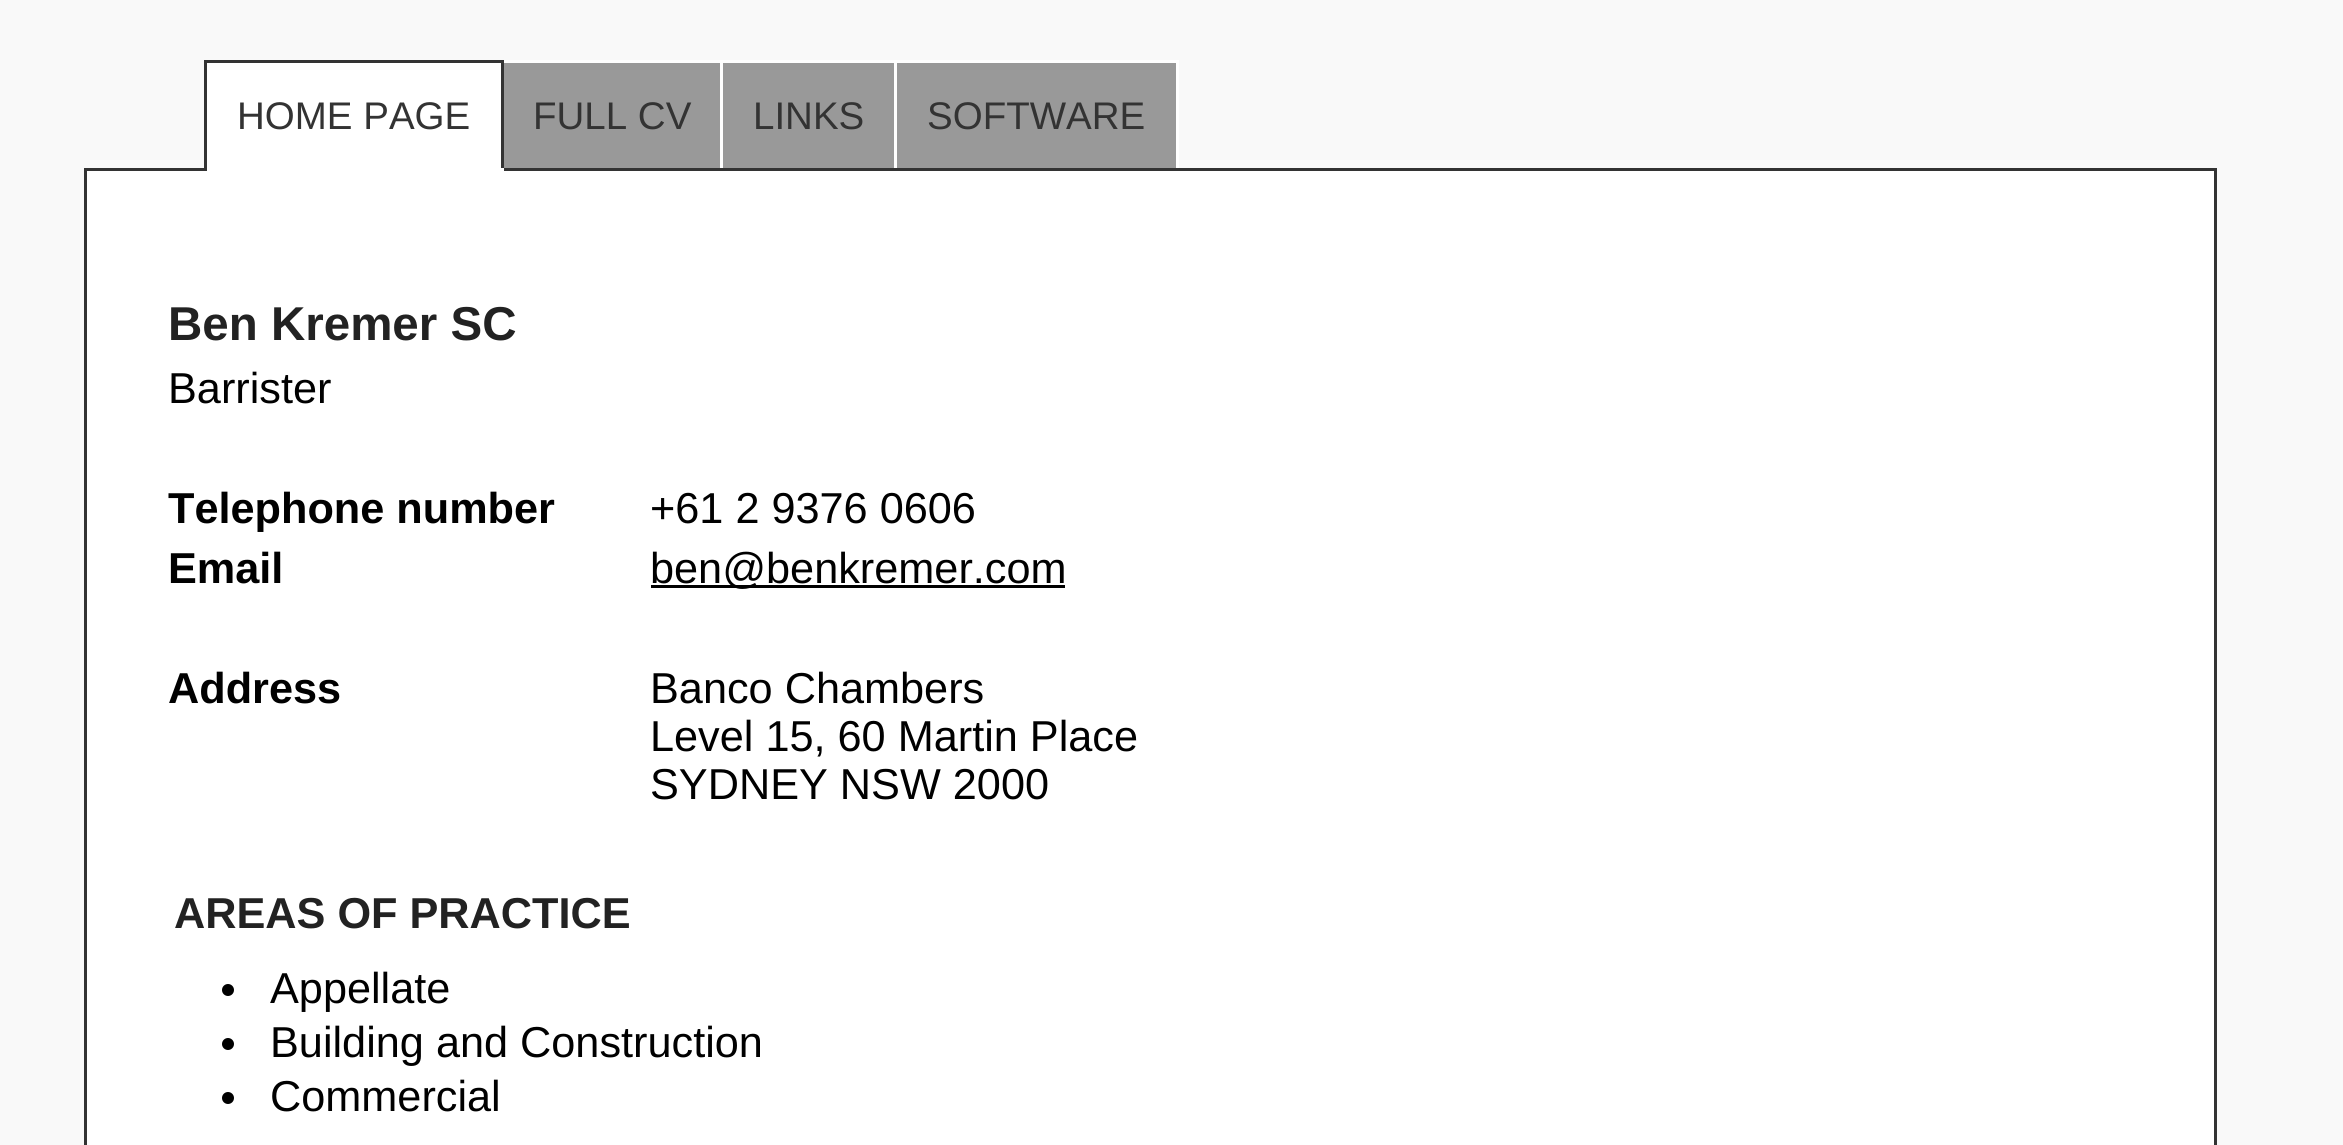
#include <cairo/cairo.h>
#include <math.h>
#include <stddef.h>

static cairo_t *cr;

static void use_color(int r, int g, int b) {
  cairo_set_source_rgb(cr, r / 255.0, g / 255.0, b / 255.0);
}

static void text(double x, double y, const char *s, const char *family, double size, int italic, int bold, int r, int g, int b) {
  cairo_select_font_face(cr, family, italic ? CAIRO_FONT_SLANT_ITALIC : CAIRO_FONT_SLANT_NORMAL,
    bold ? CAIRO_FONT_WEIGHT_BOLD : CAIRO_FONT_WEIGHT_NORMAL);
  cairo_set_font_size(cr, size);
  use_color(r, g, b);
  cairo_move_to(cr, x, y);
  cairo_show_text(cr, s);
}

static void box(double x, double y, double w, double h, int r, int g, int b) {
  use_color(r, g, b);
  cairo_rectangle(cr, x, y, w, h);
  cairo_fill(cr);
}

static void draw(void) {
  use_color(249, 249, 249);
  cairo_paint(cr);
  box(207, 63, 294, 105, 255, 255, 255);
  box(204, 60, 300, 3, 51, 51, 51);
  use_color(255, 255, 255);
  cairo_rectangle(cr, 85.5, 169.5, 2130, 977);
  cairo_fill_preserve(cr);
  use_color(51, 51, 51);
  cairo_set_line_width(cr, 3);
  cairo_stroke(cr);
  box(501, 60, 3, 111, 51, 51, 51);
  box(204, 168, 300, 3, 255, 255, 255);
  box(204, 60, 3, 111, 51, 51, 51);
  box(504, 63, 216, 105, 153, 153, 153);
  box(504, 60, 675, 3, 255, 255, 255);
  box(720, 60, 3, 108, 255, 255, 255);
  box(723, 63, 171, 105, 153, 153, 153);
  box(894, 60, 3, 108, 255, 255, 255);
  box(897, 63, 279, 105, 153, 153, 153);
  box(1176, 60, 3, 108, 255, 255, 255);
  box(651, 585, 414, 3, 0, 0, 0);
  cairo_arc(cr, 228, 990, 6, 0, 2 * M_PI);
  cairo_fill(cr);
  cairo_arc(cr, 228, 1044, 6, 0, 2 * M_PI);
  cairo_fill(cr);
  cairo_arc(cr, 228, 1098, 6, 0, 2 * M_PI);
  cairo_fill(cr);
  text(237, 129, "HOME PAGE", "Liberation Sans", 38.5, 0, 0, 51, 51, 51);
  text(533, 129, "FULL CV", "Liberation Sans", 38.5, 0, 0, 51, 51, 51);
  text(753, 129, "LINKS", "Liberation Sans", 38.5, 0, 0, 51, 51, 51);
  text(927, 129, "SOFTWARE", "Liberation Sans", 38.5, 0, 0, 51, 51, 51);
  text(168, 340, "Ben Kremer SC", "Liberation Sans", 47.5, 0, 1, 34, 34, 34);
  text(168, 403, "Barrister", "Liberation Sans", 43.25, 0, 0, 0, 0, 0);
  text(168, 523, "Telephone number", "Liberation Sans", 43.25, 0, 1, 0, 0, 0);
  text(650, 523, "+61 2 9376 0606", "Liberation Sans", 43.25, 0, 0, 0, 0, 0);
  text(168, 583, "Email", "Liberation Sans", 43.25, 0, 1, 0, 0, 0);
  text(650, 583, "ben@benkremer.com", "Liberation Sans", 43.25, 0, 0, 0, 0, 0);
  text(168, 703, "Address", "Liberation Sans", 43.25, 0, 1, 0, 0, 0);
  text(650, 703, "Banco Chambers", "Liberation Sans", 43.25, 0, 0, 0, 0, 0);
  text(650, 751, "Level 15, 60 Martin Place", "Liberation Sans", 43.25, 0, 0, 0, 0, 0);
  text(650, 799, "SYDNEY NSW 2000", "Liberation Sans", 43.25, 0, 0, 0, 0, 0);
  text(174, 928, "AREAS OF PRACTICE", "Liberation Sans", 43.25, 0, 1, 34, 34, 34);
  text(270, 1003, "Appellate", "Liberation Sans", 43.25, 0, 0, 0, 0, 0);
  text(270, 1057, "Building and Construction", "Liberation Sans", 43.25, 0, 0, 0, 0, 0);
  text(270, 1111, "Commercial", "Liberation Sans", 43.25, 0, 0, 0, 0, 0);
}

int main(void) {
  cairo_surface_t *surface = cairo_image_surface_create(CAIRO_FORMAT_RGB24, 2343, 1145);
  cr = cairo_create(surface);
  cairo_font_options_t *options = cairo_font_options_create();
  cairo_font_options_set_hint_metrics(options, CAIRO_HINT_METRICS_OFF);
  cairo_font_options_set_hint_style(options, CAIRO_HINT_STYLE_NONE);
  cairo_set_font_options(cr, options);
  cairo_set_miter_limit(cr, 4);
  draw();
  cairo_surface_write_to_png(surface, "out.png");
  cairo_font_options_destroy(options);
  cairo_destroy(cr);
  cairo_surface_destroy(surface);
  return 0;
}
